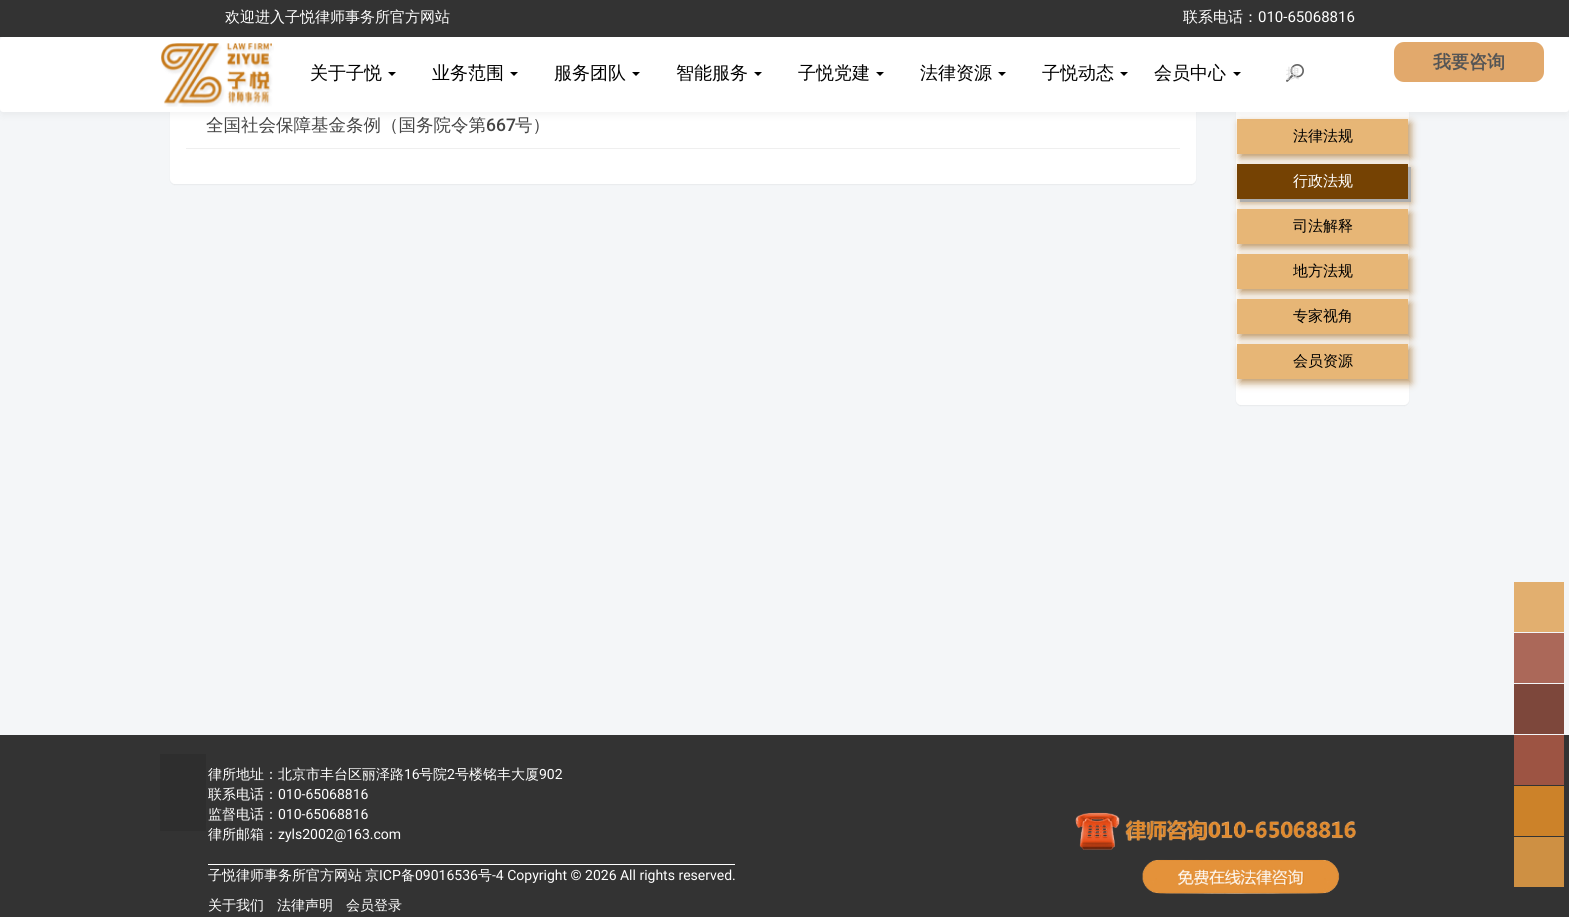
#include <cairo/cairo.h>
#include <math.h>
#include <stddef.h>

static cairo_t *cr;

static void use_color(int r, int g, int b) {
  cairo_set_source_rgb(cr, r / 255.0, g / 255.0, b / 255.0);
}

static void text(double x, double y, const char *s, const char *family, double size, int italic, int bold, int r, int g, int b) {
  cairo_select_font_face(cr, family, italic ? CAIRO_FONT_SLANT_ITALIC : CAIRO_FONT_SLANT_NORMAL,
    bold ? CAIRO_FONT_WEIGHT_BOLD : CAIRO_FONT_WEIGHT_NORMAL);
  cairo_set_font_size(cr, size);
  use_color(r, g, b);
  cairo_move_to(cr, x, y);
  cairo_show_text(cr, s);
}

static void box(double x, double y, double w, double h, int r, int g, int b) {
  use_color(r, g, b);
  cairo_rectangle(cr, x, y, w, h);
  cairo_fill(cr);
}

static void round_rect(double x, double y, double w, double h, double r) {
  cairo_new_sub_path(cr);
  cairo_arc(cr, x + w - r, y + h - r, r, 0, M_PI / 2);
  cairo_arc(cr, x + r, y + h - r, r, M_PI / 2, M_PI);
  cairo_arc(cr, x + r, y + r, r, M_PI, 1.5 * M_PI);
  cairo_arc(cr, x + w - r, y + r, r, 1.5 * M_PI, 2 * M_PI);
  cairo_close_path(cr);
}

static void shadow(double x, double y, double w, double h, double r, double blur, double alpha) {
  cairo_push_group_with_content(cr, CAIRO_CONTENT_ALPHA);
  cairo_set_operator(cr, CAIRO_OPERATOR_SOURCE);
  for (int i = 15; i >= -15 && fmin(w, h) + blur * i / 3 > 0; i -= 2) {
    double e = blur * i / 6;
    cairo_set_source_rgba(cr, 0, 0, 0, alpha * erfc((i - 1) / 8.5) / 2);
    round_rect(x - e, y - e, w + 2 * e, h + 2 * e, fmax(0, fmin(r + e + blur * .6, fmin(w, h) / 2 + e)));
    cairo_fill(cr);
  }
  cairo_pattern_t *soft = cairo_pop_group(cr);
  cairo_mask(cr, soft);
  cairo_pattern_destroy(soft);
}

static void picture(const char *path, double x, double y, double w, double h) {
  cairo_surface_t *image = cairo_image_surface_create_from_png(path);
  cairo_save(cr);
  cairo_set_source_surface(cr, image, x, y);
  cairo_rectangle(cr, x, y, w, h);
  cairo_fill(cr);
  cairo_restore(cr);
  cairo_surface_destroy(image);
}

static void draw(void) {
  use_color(244, 246, 248);
  cairo_paint(cr);
  box(0, 0, 1569, 37, 51, 51, 51);
  use_color(0, 0, 0);
  shadow(170, 103, 1026, 82, 5, 0.5, 0.05);
  use_color(255, 255, 255);
  round_rect(170.5, 102.5, 1025, 81, 4.5);
  cairo_fill_preserve(cr);
  cairo_set_line_width(cr, 1);
  cairo_stroke(cr);
  use_color(0, 0, 0);
  shadow(1236, 104, 173, 302, 5, 0.5, 0.05);
  use_color(255, 255, 255);
  round_rect(1236.5, 103.5, 172, 301, 4.5);
  cairo_fill_preserve(cr);
  cairo_stroke(cr);
  use_color(190, 154, 107);
  shadow(1240, 123, 171, 35, 0, 4, 1);
  box(1237, 119, 171, 35, 231, 182, 118);
  use_color(0, 0, 0);
  shadow(0, 40, 1569, 75, 3, 4, 0.05);
  use_color(255, 255, 255);
  round_rect(0, 37, 1569, 75, 3);
  cairo_fill(cr);
  use_color(0, 0, 0);
  cairo_new_path(cr);
  cairo_move_to(cr, 388, 72);
  cairo_line_to(cr, 396, 72);
  cairo_line_to(cr, 392, 76);
  cairo_close_path(cr);
  cairo_fill(cr);
  cairo_new_path(cr);
  cairo_move_to(cr, 510, 72);
  cairo_line_to(cr, 518, 72);
  cairo_line_to(cr, 514, 76);
  cairo_close_path(cr);
  cairo_fill(cr);
  cairo_new_path(cr);
  cairo_move_to(cr, 632, 72);
  cairo_line_to(cr, 640, 72);
  cairo_line_to(cr, 636, 76);
  cairo_close_path(cr);
  cairo_fill(cr);
  cairo_new_path(cr);
  cairo_move_to(cr, 754, 72);
  cairo_line_to(cr, 762, 72);
  cairo_line_to(cr, 758, 76);
  cairo_close_path(cr);
  cairo_fill(cr);
  cairo_new_path(cr);
  cairo_move_to(cr, 876, 72);
  cairo_line_to(cr, 884, 72);
  cairo_line_to(cr, 880, 76);
  cairo_close_path(cr);
  cairo_fill(cr);
  cairo_new_path(cr);
  cairo_move_to(cr, 998, 72);
  cairo_line_to(cr, 1006, 72);
  cairo_line_to(cr, 1002, 76);
  cairo_close_path(cr);
  cairo_fill(cr);
  cairo_new_path(cr);
  cairo_move_to(cr, 1120, 72);
  cairo_line_to(cr, 1128, 72);
  cairo_line_to(cr, 1124, 76);
  cairo_close_path(cr);
  cairo_fill(cr);
  cairo_new_path(cr);
  cairo_move_to(cr, 1233, 72);
  cairo_line_to(cr, 1241, 72);
  cairo_line_to(cr, 1237, 76);
  cairo_close_path(cr);
  cairo_fill(cr);
  picture("img_01.png", 1286, 64, 18, 18);
  picture("img_02.png", 161, 43, 113, 64);
  use_color(226, 169, 108);
  round_rect(1394, 42, 150, 40, 10);
  cairo_fill(cr);
  box(186, 148, 994, 1, 239, 239, 239);
  use_color(190, 154, 107);
  shadow(1240, 168, 171, 35, 0, 4, 1);
  use_color(173, 173, 173);
  cairo_new_path(cr);
  cairo_move_to(cr, 1240, 199);
  cairo_line_to(cr, 1240, 202);
  cairo_line_to(cr, 1411, 202);
  cairo_line_to(cr, 1411, 167);
  cairo_line_to(cr, 1408, 167);
  cairo_line_to(cr, 1408, 199);
  cairo_close_path(cr);
  cairo_fill(cr);
  box(1237, 164, 171, 35, 117, 66, 3);
  use_color(190, 154, 107);
  shadow(1240, 213, 171, 35, 0, 4, 1);
  box(1237, 209, 171, 35, 231, 182, 118);
  use_color(190, 154, 107);
  shadow(1240, 258, 171, 35, 0, 4, 1);
  box(1237, 254, 171, 35, 231, 182, 118);
  use_color(190, 154, 107);
  shadow(1240, 303, 171, 35, 0, 4, 1);
  box(1237, 299, 171, 35, 231, 182, 118);
  use_color(190, 154, 107);
  shadow(1240, 348, 171, 35, 0, 4, 1);
  box(1237, 344, 171, 35, 231, 182, 118);
  box(0, 735, 1569, 182, 51, 51, 51);
  box(160, 754, 46, 77, 46, 46, 46);
  box(208, 864, 527, 1, 255, 255, 255);
  picture("img_03.png", 1075, 812, 281, 82);
  box(1514, 582, 50, 50, 226, 175, 111);
  box(1514, 633, 50, 50, 171, 104, 89);
  box(1514, 684, 50, 50, 125, 71, 59);
  box(1514, 735, 50, 50, 157, 84, 67);
  box(1514, 786, 50, 50, 204, 130, 41);
  box(1514, 837, 50, 50, 206, 144, 67);
  text(225, 22, "欢迎进入子悦律师事务所官方网站", "WenQuanYi Zen Hei Medium", 15, 0, 0, 255, 255, 255);
  text(1183, 22, "联系电话：", "WenQuanYi Zen Hei Medium", 15, 0, 0, 255, 255, 255);
  text(1258, 22, "010-65068816", "Roboto", 15, 0, 0, 255, 255, 255);
  text(310, 79, "关于子悦", "WenQuanYi Zen Hei Medium", 18, 0, 0, 0, 0, 0);
  text(432, 79, "业务范围", "WenQuanYi Zen Hei Medium", 18, 0, 0, 0, 0, 0);
  text(554, 79, "服务团队", "WenQuanYi Zen Hei Medium", 18, 0, 0, 0, 0, 0);
  text(676, 79, "智能服务", "WenQuanYi Zen Hei Medium", 18, 0, 0, 0, 0, 0);
  text(798, 79, "子悦党建", "WenQuanYi Zen Hei Medium", 18, 0, 0, 0, 0, 0);
  text(920, 79, "法律资源", "WenQuanYi Zen Hei Medium", 18, 0, 0, 0, 0, 0);
  text(1042, 79, "子悦动态", "WenQuanYi Zen Hei Medium", 18, 0, 0, 0, 0, 0);
  text(1154, 79, "会员中心", "WenQuanYi Zen Hei Medium", 18, 0, 0, 0, 0, 0);
  text(1286, 78, "搜", "WenQuanYi Zen Hei Medium", 14, 0, 0, 220, 220, 220);
  text(1433, 68, "我要咨询", "WenQuanYi Zen Hei", 18, 0, 1, 85, 85, 85);
  text(206, 131, "全国社会保障基金条例（国务院令第", "WenQuanYi Zen Hei Medium", 17.5, 0, 0, 68, 68, 68);
  text(486, 131, "667", "Roboto Medium", 17.5, 0, 0, 68, 68, 68);
  text(515, 131, "号）", "WenQuanYi Zen Hei Medium", 17.5, 0, 0, 68, 68, 68);
  text(1293, 141, "法律法规", "WenQuanYi Zen Hei Medium", 15, 0, 0, 0, 0, 0);
  text(1293, 186, "行政法规", "WenQuanYi Zen Hei Medium", 15, 0, 0, 255, 255, 255);
  text(1293, 231, "司法解释", "WenQuanYi Zen Hei Medium", 15, 0, 0, 0, 0, 0);
  text(1293, 276, "地方法规", "WenQuanYi Zen Hei Medium", 15, 0, 0, 0, 0, 0);
  text(1293, 321, "专家视角", "WenQuanYi Zen Hei Medium", 15, 0, 0, 0, 0, 0);
  text(1293, 366, "会员资源", "WenQuanYi Zen Hei Medium", 15, 0, 0, 0, 0, 0);
  text(208, 779, "律所地址：北京市丰台区丽泽路", "WenQuanYi Zen Hei Medium", 14, 0, 0, 255, 255, 255);
  text(404, 779, "16", "Roboto", 14, 0, 0, 255, 255, 255);
  text(419, 779, "号院", "WenQuanYi Zen Hei Medium", 14, 0, 0, 255, 255, 255);
  text(447, 779, "2", "Roboto", 14, 0, 0, 255, 255, 255);
  text(455, 779, "号楼铭丰大厦", "WenQuanYi Zen Hei Medium", 14, 0, 0, 255, 255, 255);
  text(539, 779, "902", "Roboto", 14, 0, 0, 255, 255, 255);
  text(208, 799, "联系电话：", "WenQuanYi Zen Hei Medium", 14, 0, 0, 255, 255, 255);
  text(278, 799, "010-65068816", "Roboto", 14, 0, 0, 255, 255, 255);
  text(208, 819, "监督电话：", "WenQuanYi Zen Hei Medium", 14, 0, 0, 255, 255, 255);
  text(278, 819, "010-65068816", "Roboto", 14, 0, 0, 255, 255, 255);
  text(208, 839, "律所邮箱：", "WenQuanYi Zen Hei Medium", 14, 0, 0, 255, 255, 255);
  text(278, 839, "zyls2002@163.com", "Roboto", 14, 0, 0, 255, 255, 255);
  text(208, 880, "子悦律师事务所官方网站", "WenQuanYi Zen Hei Medium", 14, 0, 0, 255, 255, 255);
  text(365, 880, "京", "WenQuanYi Zen Hei Medium", 14, 0, 0, 255, 255, 255);
  text(379, 880, "ICP", "Roboto", 14, 0, 0, 255, 255, 255);
  text(401, 880, "备", "WenQuanYi Zen Hei Medium", 14, 0, 0, 255, 255, 255);
  text(415, 880, "09016536", "Roboto", 14, 0, 0, 255, 255, 255);
  text(478, 880, "号", "WenQuanYi Zen Hei Medium", 14, 0, 0, 255, 255, 255);
  text(492, 880, "-4 Copyright © 2026 All rights reserved.", "Roboto", 14, 0, 0, 255, 255, 255);
  text(208, 910, "关于我们", "WenQuanYi Zen Hei Medium", 14, 0, 0, 255, 255, 255);
  text(277, 910, "法律声明", "WenQuanYi Zen Hei Medium", 14, 0, 0, 255, 255, 255);
  text(346, 910, "会员登录", "WenQuanYi Zen Hei Medium", 14, 0, 0, 255, 255, 255);
}

int main(void) {
  cairo_surface_t *surface = cairo_image_surface_create(CAIRO_FORMAT_RGB24, 1569, 917);
  cr = cairo_create(surface);
  cairo_font_options_t *options = cairo_font_options_create();
  cairo_font_options_set_hint_metrics(options, CAIRO_HINT_METRICS_OFF);
  cairo_font_options_set_hint_style(options, CAIRO_HINT_STYLE_NONE);
  cairo_set_font_options(cr, options);
  cairo_set_miter_limit(cr, 4);
  draw();
  cairo_surface_write_to_png(surface, "out.png");
  cairo_font_options_destroy(options);
  cairo_destroy(cr);
  cairo_surface_destroy(surface);
  return 0;
}
